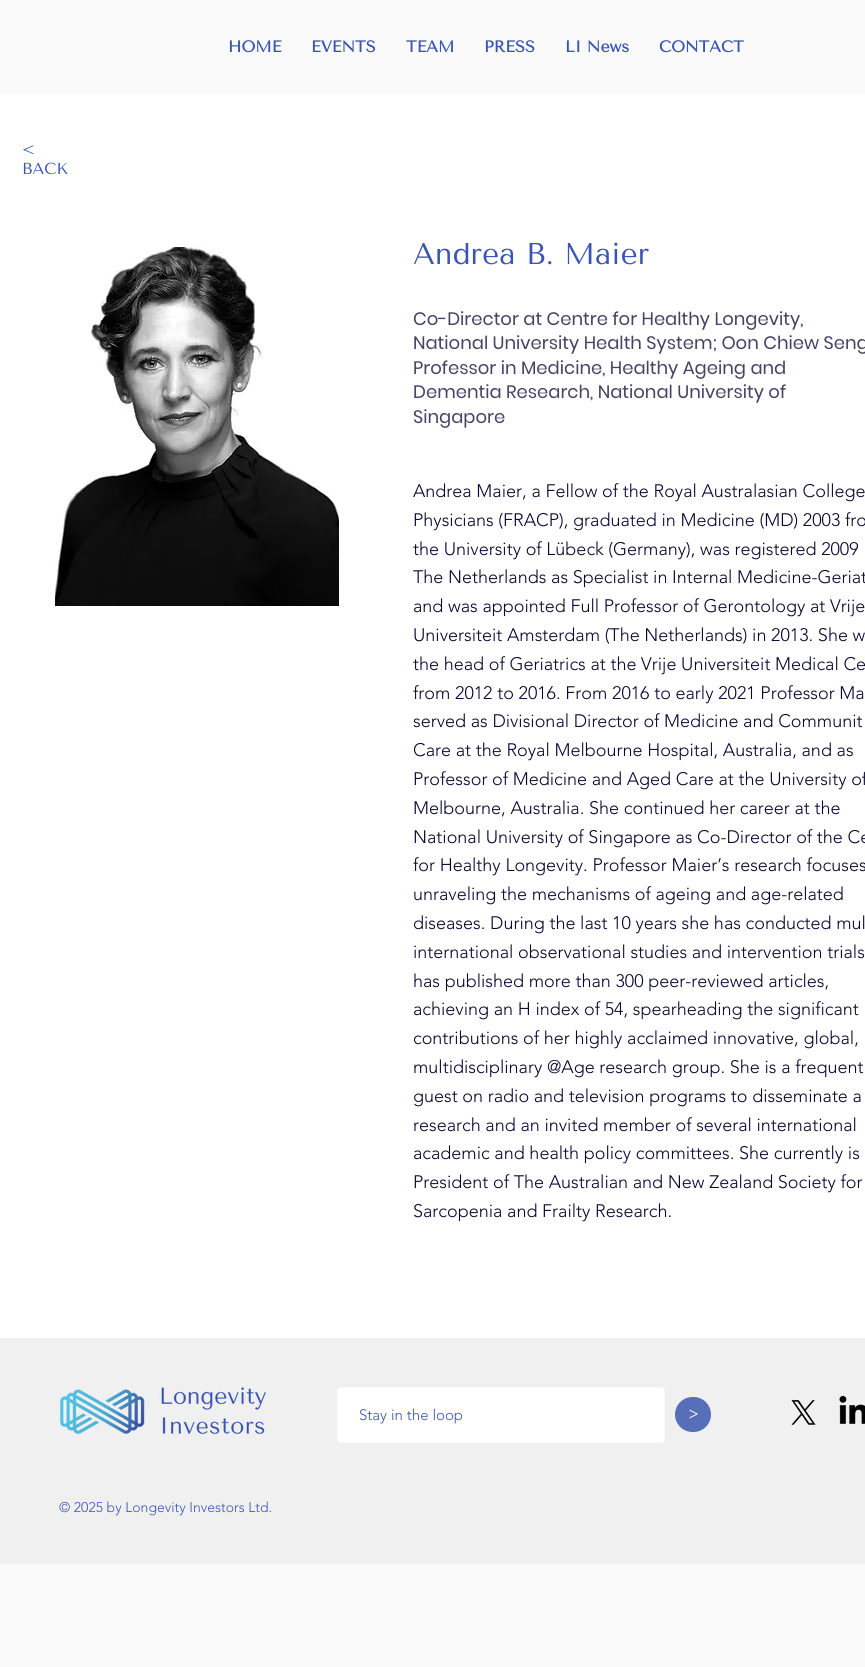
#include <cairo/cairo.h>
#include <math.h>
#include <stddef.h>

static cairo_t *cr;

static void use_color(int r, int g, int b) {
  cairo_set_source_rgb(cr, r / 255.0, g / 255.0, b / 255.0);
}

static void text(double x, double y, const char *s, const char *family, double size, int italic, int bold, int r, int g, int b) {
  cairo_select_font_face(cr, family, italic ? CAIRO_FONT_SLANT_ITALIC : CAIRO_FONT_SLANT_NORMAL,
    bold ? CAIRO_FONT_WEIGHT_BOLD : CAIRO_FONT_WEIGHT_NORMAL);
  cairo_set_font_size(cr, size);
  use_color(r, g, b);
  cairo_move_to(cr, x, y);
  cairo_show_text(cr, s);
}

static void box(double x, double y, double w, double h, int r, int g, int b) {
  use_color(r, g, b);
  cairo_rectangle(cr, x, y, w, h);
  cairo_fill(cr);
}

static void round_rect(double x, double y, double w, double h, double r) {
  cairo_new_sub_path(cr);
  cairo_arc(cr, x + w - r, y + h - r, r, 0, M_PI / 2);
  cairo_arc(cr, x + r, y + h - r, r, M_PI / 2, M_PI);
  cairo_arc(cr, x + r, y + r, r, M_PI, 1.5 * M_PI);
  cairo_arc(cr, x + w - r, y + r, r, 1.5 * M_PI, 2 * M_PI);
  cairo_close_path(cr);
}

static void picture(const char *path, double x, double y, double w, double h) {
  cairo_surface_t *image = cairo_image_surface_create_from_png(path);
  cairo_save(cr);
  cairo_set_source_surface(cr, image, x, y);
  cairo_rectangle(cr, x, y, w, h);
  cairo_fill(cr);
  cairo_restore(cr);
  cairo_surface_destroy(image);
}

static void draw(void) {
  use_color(250, 250, 250);
  cairo_paint(cr);
  box(0, 95, 865, 1243, 255, 255, 255);
  picture("img_01.png", 55, 247, 284, 359);
  box(0, 1338, 865, 226, 240, 240, 240);
  picture("img_02.png", 60, 1387, 206, 47);
  use_color(255, 255, 255);
  round_rect(337.5, 1387.5, 327, 55, 3.5);
  cairo_fill_preserve(cr);
  use_color(250, 250, 250);
  cairo_set_line_width(cr, 1);
  cairo_stroke(cr);
  use_color(86, 111, 184);
  round_rect(675, 1397, 36, 35, 17.5);
  cairo_fill(cr);
  picture("img_03.png", 791, 1399, 25, 26);
  picture("img_04.png", 839, 1395, 26, 29);
  text(228, 52, "HOME", "Tenor Sans", 16, 0, 1, 58, 84, 180);
  text(311, 52, "EVENTS", "Tenor Sans", 16, 0, 1, 58, 84, 180);
  text(406, 52, "TEAM", "Tenor Sans", 16, 0, 1, 58, 84, 180);
  text(484, 52, "PRESS", "Tenor Sans", 16, 0, 1, 58, 84, 180);
  text(565, 52, "LI News", "Tenor Sans", 16, 0, 1, 58, 84, 180);
  text(659, 52, "CONTACT", "Tenor Sans", 16, 0, 1, 58, 84, 180);
  text(22, 155, "<", "Tenor Sans", 16, 0, 0, 58, 84, 180);
  text(22, 174, "BACK", "Tenor Sans", 16, 0, 0, 58, 84, 180);
  text(413, 264, "Andrea B. Maier", "Tenor Sans", 30, 0, 0, 58, 84, 180);
  text(413, 325, "Co-Director at Centre for Healthy Longevity,", "Poppins", 18, 0, 0, 69, 66, 99);
  text(413, 349, "National University Health System; Oon Chiew Seng", "Poppins", 18, 0, 0, 69, 66, 99);
  text(413, 374, "Professor in Medicine, Healthy Ageing and", "Poppins", 18, 0, 0, 69, 66, 99);
  text(413, 398, "Dementia Research, National University of", "Poppins", 18, 0, 0, 69, 66, 99);
  text(413, 423, "Singapore", "Poppins", 18, 0, 0, 69, 66, 99);
  text(413, 497, "Andrea Maier, a Fellow of the Royal Australasian College", "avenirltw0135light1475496 Light", 18, 0, 0, 8, 5, 48);
  text(413, 526, "Physicians (FRACP), graduated in Medicine (MD) 2003 fro", "avenirltw0135light1475496 Light", 18, 0, 0, 8, 5, 48);
  text(413, 555, "the University of Lübeck (Germany), was registered 2009", "avenirltw0135light1475496 Light", 18, 0, 0, 8, 5, 48);
  text(413, 583, "The Netherlands as Specialist in Internal Medicine-Geriat", "avenirltw0135light1475496 Light", 18, 0, 0, 8, 5, 48);
  text(413, 612, "and was appointed Full Professor of Gerontology at Vrije", "avenirltw0135light1475496 Light", 18, 0, 0, 8, 5, 48);
  text(413, 641, "Universiteit Amsterdam (The Netherlands) in 2013. She w", "avenirltw0135light1475496 Light", 18, 0, 0, 8, 5, 48);
  text(413, 670, "the head of Geriatrics at the Vrije Universiteit Medical Ce", "avenirltw0135light1475496 Light", 18, 0, 0, 8, 5, 48);
  text(413, 699, "from 2012 to 2016. From 2016 to early 2021 Professor Ma", "avenirltw0135light1475496 Light", 18, 0, 0, 8, 5, 48);
  text(413, 727, "served as Divisional Director of Medicine and Communit", "avenirltw0135light1475496 Light", 18, 0, 0, 8, 5, 48);
  text(413, 756, "Care at the Royal Melbourne Hospital, Australia, and as", "avenirltw0135light1475496 Light", 18, 0, 0, 8, 5, 48);
  text(413, 785, "Professor of Medicine and Aged Care at the University of", "avenirltw0135light1475496 Light", 18, 0, 0, 8, 5, 48);
  text(413, 814, "Melbourne, Australia. She continued her career at the", "avenirltw0135light1475496 Light", 18, 0, 0, 8, 5, 48);
  text(413, 843, "National University of Singapore as Co-Director of the Ce", "avenirltw0135light1475496 Light", 18, 0, 0, 8, 5, 48);
  text(413, 871, "for Healthy Longevity. Professor Maier’s research focuses", "avenirltw0135light1475496 Light", 18, 0, 0, 8, 5, 48);
  text(413, 900, "unraveling the mechanisms of ageing and age-related", "avenirltw0135light1475496 Light", 18, 0, 0, 8, 5, 48);
  text(413, 929, "diseases. During the last 10 years she has conducted mul", "avenirltw0135light1475496 Light", 18, 0, 0, 8, 5, 48);
  text(413, 958, "international observational studies and intervention trials", "avenirltw0135light1475496 Light", 18, 0, 0, 8, 5, 48);
  text(413, 987, "has published more than 300 peer-reviewed articles,", "avenirltw0135light1475496 Light", 18, 0, 0, 8, 5, 48);
  text(413, 1015, "achieving an H index of 54, spearheading the significant", "avenirltw0135light1475496 Light", 18, 0, 0, 8, 5, 48);
  text(413, 1044, "contributions of her highly acclaimed innovative, global,", "avenirltw0135light1475496 Light", 18, 0, 0, 8, 5, 48);
  text(413, 1073, "multidisciplinary @Age research group. She is a frequent", "avenirltw0135light1475496 Light", 18, 0, 0, 8, 5, 48);
  text(413, 1102, "guest on radio and television programs to disseminate a", "avenirltw0135light1475496 Light", 18, 0, 0, 8, 5, 48);
  text(413, 1131, "research and an invited member of several international", "avenirltw0135light1475496 Light", 18, 0, 0, 8, 5, 48);
  text(413, 1159, "academic and health policy committees. She currently is", "avenirltw0135light1475496 Light", 18, 0, 0, 8, 5, 48);
  text(413, 1188, "President of The Australian and New Zealand Society for", "avenirltw0135light1475496 Light", 18, 0, 0, 8, 5, 48);
  text(413, 1217, "Sarcopenia and Frailty Research.", "avenirltw0135light1475496 Light", 18, 0, 0, 8, 5, 48);
  text(359, 1420, "Stay in the loop", "avenirltw0135light1475496 Light", 15, 0, 0, 58, 84, 180);
  text(689, 1420, ">", "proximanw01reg", 18, 0, 0, 255, 255, 255);
  text(59, 1512, "© 2025 by Longevity Investors Ltd.", "avenirltw0135light1475496 Light", 14, 0, 0, 58, 84, 180);
}

int main(void) {
  cairo_surface_t *surface = cairo_image_surface_create(CAIRO_FORMAT_RGB24, 865, 1667);
  cr = cairo_create(surface);
  cairo_font_options_t *options = cairo_font_options_create();
  cairo_font_options_set_hint_metrics(options, CAIRO_HINT_METRICS_OFF);
  cairo_font_options_set_hint_style(options, CAIRO_HINT_STYLE_NONE);
  cairo_set_font_options(cr, options);
  cairo_set_miter_limit(cr, 4);
  draw();
  cairo_surface_write_to_png(surface, "out.png");
  cairo_font_options_destroy(options);
  cairo_destroy(cr);
  cairo_surface_destroy(surface);
  return 0;
}
